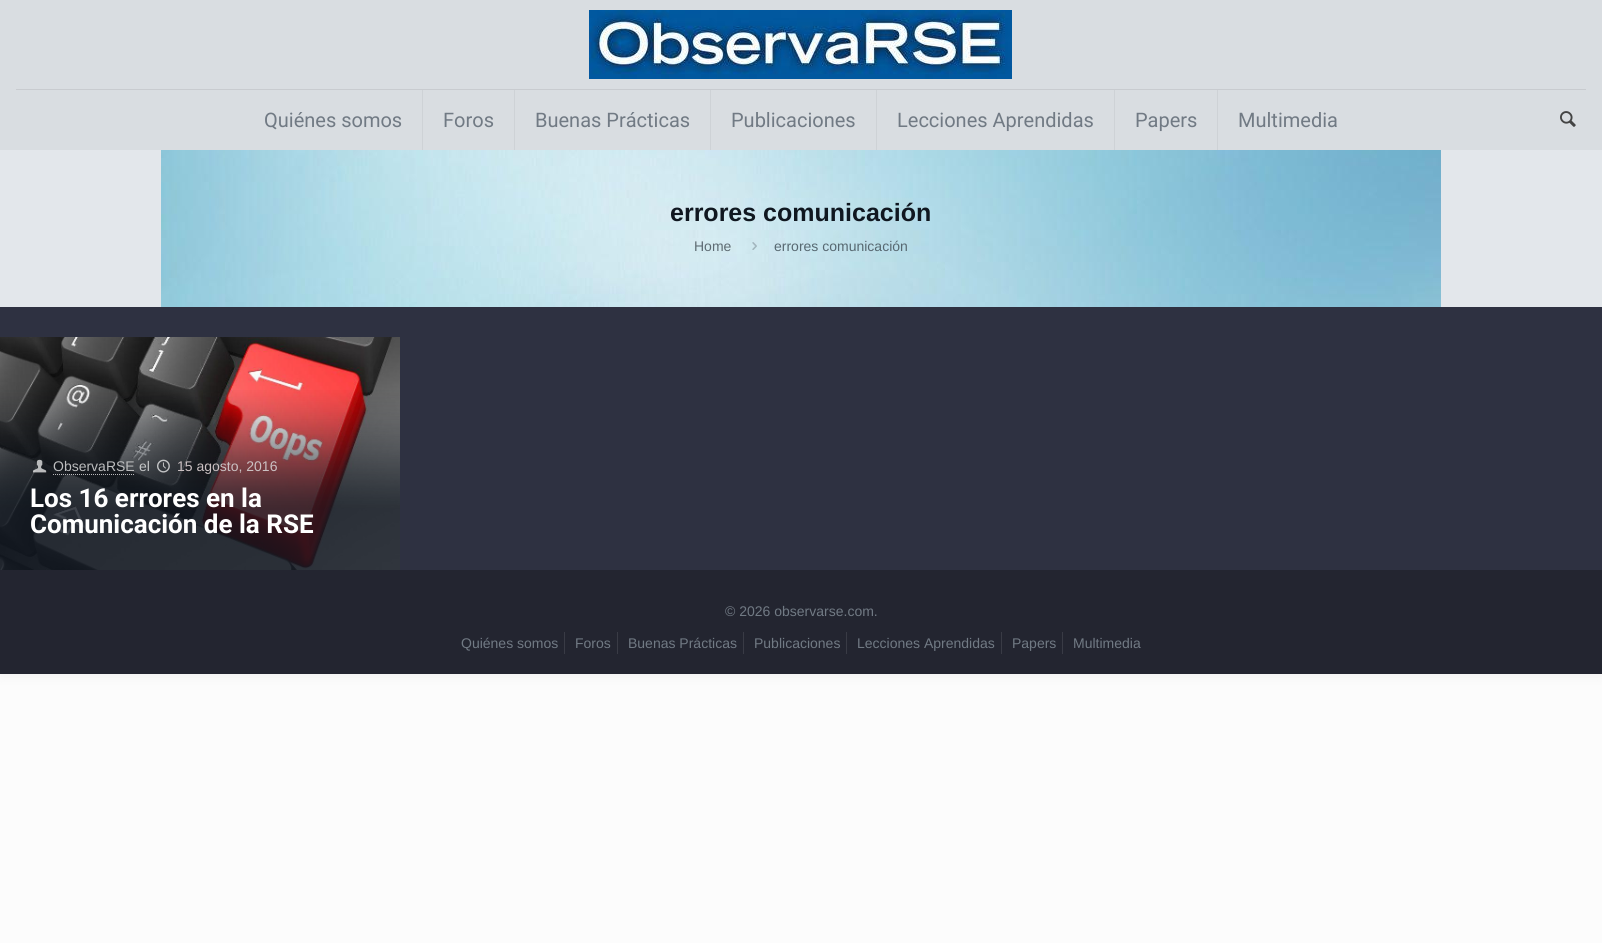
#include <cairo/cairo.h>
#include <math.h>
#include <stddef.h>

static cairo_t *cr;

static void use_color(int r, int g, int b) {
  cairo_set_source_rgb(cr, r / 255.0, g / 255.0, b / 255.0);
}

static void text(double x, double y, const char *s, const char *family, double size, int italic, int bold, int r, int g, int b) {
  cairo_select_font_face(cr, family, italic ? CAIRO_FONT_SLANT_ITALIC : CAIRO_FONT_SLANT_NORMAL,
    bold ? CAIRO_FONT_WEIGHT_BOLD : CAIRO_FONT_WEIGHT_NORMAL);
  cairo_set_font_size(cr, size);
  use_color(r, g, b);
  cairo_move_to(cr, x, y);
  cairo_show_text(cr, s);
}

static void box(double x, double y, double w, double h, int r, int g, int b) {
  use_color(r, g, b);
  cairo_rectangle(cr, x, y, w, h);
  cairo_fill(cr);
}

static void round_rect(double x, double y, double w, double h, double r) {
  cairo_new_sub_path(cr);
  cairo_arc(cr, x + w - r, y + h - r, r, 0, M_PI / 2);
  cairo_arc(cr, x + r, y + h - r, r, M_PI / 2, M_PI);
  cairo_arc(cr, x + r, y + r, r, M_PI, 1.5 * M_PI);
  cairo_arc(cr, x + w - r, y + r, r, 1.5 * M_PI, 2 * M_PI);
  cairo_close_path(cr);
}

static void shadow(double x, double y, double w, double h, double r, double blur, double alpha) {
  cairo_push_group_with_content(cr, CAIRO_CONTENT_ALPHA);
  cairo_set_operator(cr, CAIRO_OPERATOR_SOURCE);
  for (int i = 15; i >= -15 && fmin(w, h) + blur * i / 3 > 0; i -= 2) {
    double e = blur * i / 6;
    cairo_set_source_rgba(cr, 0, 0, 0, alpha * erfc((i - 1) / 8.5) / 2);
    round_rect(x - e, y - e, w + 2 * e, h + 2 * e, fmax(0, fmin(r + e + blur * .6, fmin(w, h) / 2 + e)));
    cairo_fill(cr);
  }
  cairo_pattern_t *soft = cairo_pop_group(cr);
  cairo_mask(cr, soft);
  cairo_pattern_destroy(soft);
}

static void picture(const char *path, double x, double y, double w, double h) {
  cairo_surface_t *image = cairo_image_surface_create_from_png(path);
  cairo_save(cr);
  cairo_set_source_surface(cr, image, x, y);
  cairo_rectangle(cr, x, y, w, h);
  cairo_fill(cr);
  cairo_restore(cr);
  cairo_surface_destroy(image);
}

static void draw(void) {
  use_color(252, 252, 252);
  cairo_paint(cr);
  use_color(0, 0, 0);
  shadow(0, 0, 1602, 674, 0, 7.5, 0.06);
  box(0, 0, 1602, 150, 217, 221, 225);
  box(16, 89, 1570, 1, 200, 203, 207);
  picture("img_01.png", 589, 10, 423, 69);
  box(422, 90, 1, 60, 206, 210, 214);
  box(514, 90, 1, 60, 206, 210, 214);
  box(710, 90, 1, 60, 206, 210, 214);
  box(876, 90, 1, 60, 206, 210, 214);
  box(1114, 90, 1, 60, 206, 210, 214);
  box(1217, 90, 1, 60, 206, 210, 214);
  picture("img_02.png", 1560, 111, 16, 16);
  box(0, 150, 1602, 157, 227, 231, 235);
  picture("img_03.png", 161, 150, 1280, 157);
  picture("img_04.png", 752, 242, 5, 8);
  box(0, 307, 1602, 263, 46, 49, 65);
  picture("img_05.png", 0, 337, 400, 233);
  picture("img_06.png", 0, 390, 400, 180);
  picture("img_07.png", 33, 459, 14, 14);
  cairo_new_path(cr);
  cairo_move_to(cr, 53, 474.5);
  cairo_line_to(cr, 135, 474.5);
  cairo_set_source_rgba(cr, 1, 1, 1, 0.7);
  cairo_set_line_width(cr, 1);
  cairo_set_dash(cr, (double[]){1, 1}, 2, 0);
  cairo_stroke(cr);
  picture("img_08.png", 157, 459, 13, 14);
  box(0, 570, 1602, 104, 35, 37, 48);
  box(564, 632, 1, 22, 57, 59, 69);
  box(617, 632, 1, 22, 57, 59, 69);
  box(743, 632, 1, 22, 57, 59, 69);
  box(846, 632, 1, 22, 57, 59, 69);
  box(1001, 632, 1, 22, 57, 59, 69);
  box(1062, 632, 1, 22, 57, 59, 69);
  text(264, 127, "Quiénes somos", "Roboto", 20, 0, 0, 113, 122, 132);
  text(443, 127, "Foros", "Roboto", 20, 0, 0, 113, 122, 132);
  text(535, 127, "Buenas Prácticas", "Roboto", 20, 0, 0, 113, 122, 132);
  text(731, 127, "Publicaciones", "Roboto", 20, 0, 0, 113, 122, 132);
  text(897, 127, "Lecciones Aprendidas", "Roboto", 20, 0, 0, 113, 122, 132);
  text(1135, 127, "Papers", "Roboto", 20, 0, 0, 113, 122, 132);
  text(1238, 127, "Multimedia", "Roboto", 20, 0, 0, 113, 122, 132);
  text(670, 221, "errores comunicación", "Liberation Sans", 25, 0, 1, 16, 23, 32);
  text(694, 251, "Home", "Liberation Sans", 14, 0, 0, 94, 107, 115);
  text(774, 251, "errores comunicación", "Liberation Sans", 14, 0, 0, 87, 104, 113);
  text(53, 471, "ObservaRSE", "Liberation Sans", 14, 0, 0, 188, 189, 190);
  text(139, 471, "el", "Liberation Sans", 14, 0, 0, 197, 199, 200);
  text(177, 471, "15 agosto, 2016", "Liberation Sans", 14, 0, 0, 203, 193, 195);
  text(30, 507, "Los 16 errores en la", "Roboto", 26, 0, 1, 255, 255, 255);
  text(30, 533, "Comunicación de la RSE", "Roboto", 26, 0, 1, 255, 255, 255);
  text(725, 616, "© 2026 observarse.com.", "Liberation Sans", 14, 0, 0, 113, 122, 132);
  text(461, 648, "Quiénes somos", "Liberation Sans", 14, 0, 0, 113, 122, 132);
  text(575, 648, "Foros", "Liberation Sans", 14, 0, 0, 113, 122, 132);
  text(628, 648, "Buenas Prácticas", "Liberation Sans", 14, 0, 0, 113, 122, 132);
  text(754, 648, "Publicaciones", "Liberation Sans", 14, 0, 0, 113, 122, 132);
  text(857, 648, "Lecciones Aprendidas", "Liberation Sans", 14, 0, 0, 113, 122, 132);
  text(1012, 648, "Papers", "Liberation Sans", 14, 0, 0, 113, 122, 132);
  text(1073, 648, "Multimedia", "Liberation Sans", 14, 0, 0, 113, 122, 132);
}

int main(void) {
  cairo_surface_t *surface = cairo_image_surface_create(CAIRO_FORMAT_RGB24, 1602, 943);
  cr = cairo_create(surface);
  cairo_font_options_t *options = cairo_font_options_create();
  cairo_font_options_set_hint_metrics(options, CAIRO_HINT_METRICS_OFF);
  cairo_font_options_set_hint_style(options, CAIRO_HINT_STYLE_NONE);
  cairo_set_font_options(cr, options);
  cairo_set_miter_limit(cr, 4);
  draw();
  cairo_surface_write_to_png(surface, "out.png");
  cairo_font_options_destroy(options);
  cairo_destroy(cr);
  cairo_surface_destroy(surface);
  return 0;
}
